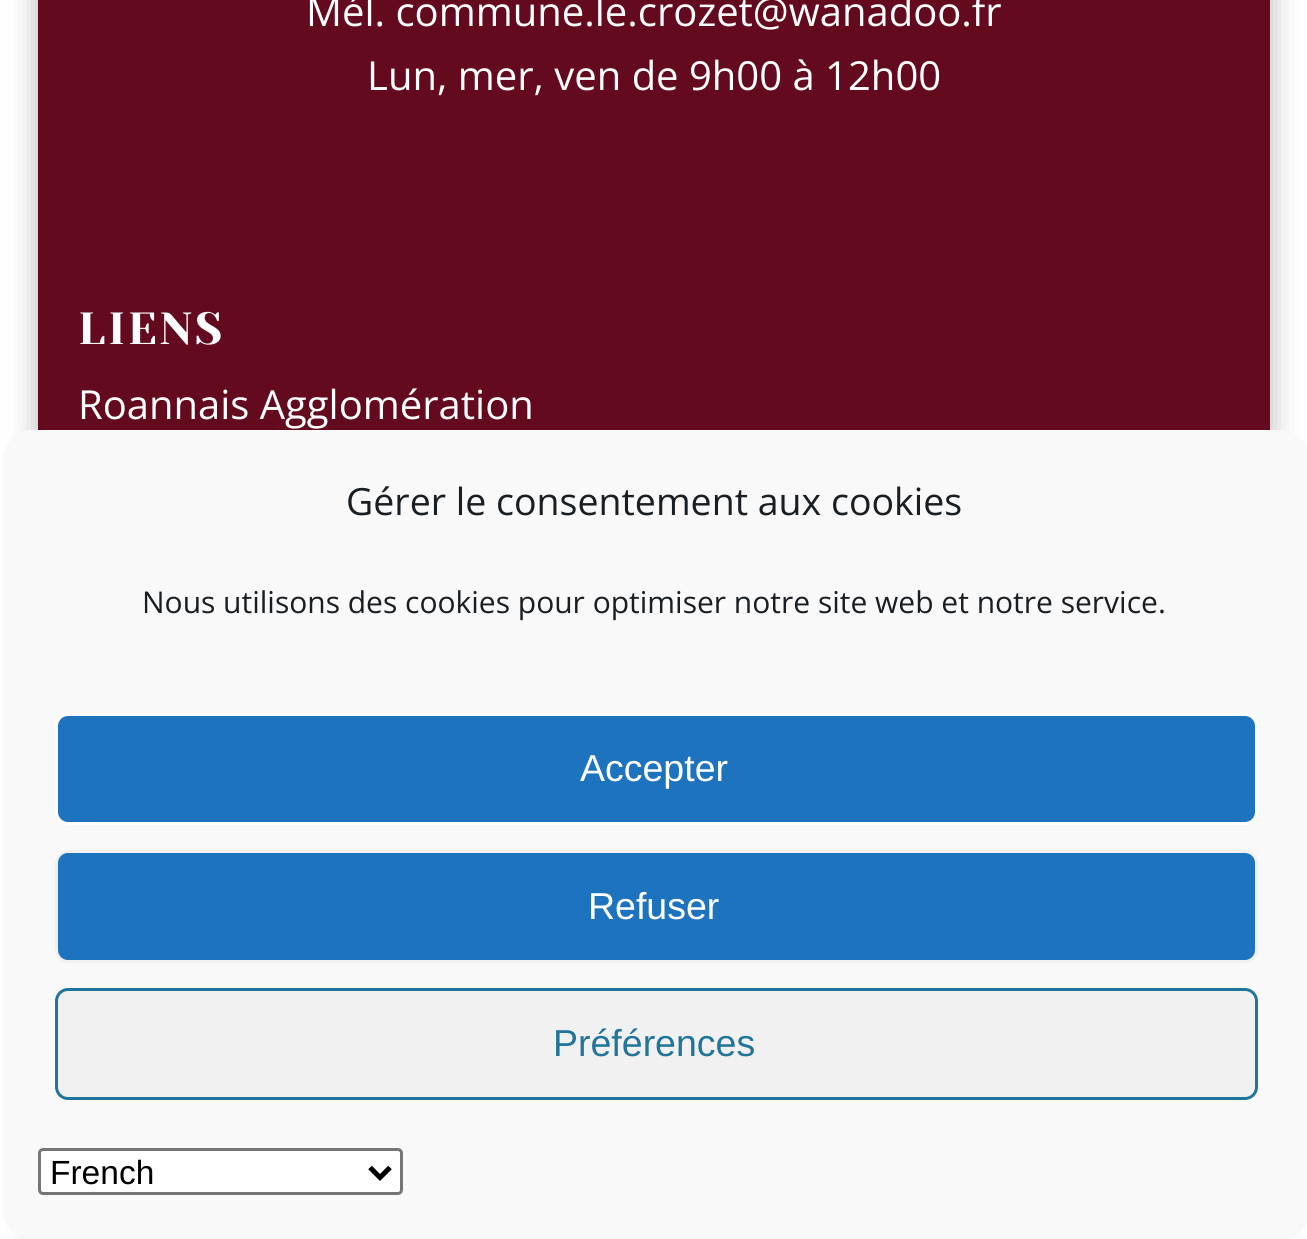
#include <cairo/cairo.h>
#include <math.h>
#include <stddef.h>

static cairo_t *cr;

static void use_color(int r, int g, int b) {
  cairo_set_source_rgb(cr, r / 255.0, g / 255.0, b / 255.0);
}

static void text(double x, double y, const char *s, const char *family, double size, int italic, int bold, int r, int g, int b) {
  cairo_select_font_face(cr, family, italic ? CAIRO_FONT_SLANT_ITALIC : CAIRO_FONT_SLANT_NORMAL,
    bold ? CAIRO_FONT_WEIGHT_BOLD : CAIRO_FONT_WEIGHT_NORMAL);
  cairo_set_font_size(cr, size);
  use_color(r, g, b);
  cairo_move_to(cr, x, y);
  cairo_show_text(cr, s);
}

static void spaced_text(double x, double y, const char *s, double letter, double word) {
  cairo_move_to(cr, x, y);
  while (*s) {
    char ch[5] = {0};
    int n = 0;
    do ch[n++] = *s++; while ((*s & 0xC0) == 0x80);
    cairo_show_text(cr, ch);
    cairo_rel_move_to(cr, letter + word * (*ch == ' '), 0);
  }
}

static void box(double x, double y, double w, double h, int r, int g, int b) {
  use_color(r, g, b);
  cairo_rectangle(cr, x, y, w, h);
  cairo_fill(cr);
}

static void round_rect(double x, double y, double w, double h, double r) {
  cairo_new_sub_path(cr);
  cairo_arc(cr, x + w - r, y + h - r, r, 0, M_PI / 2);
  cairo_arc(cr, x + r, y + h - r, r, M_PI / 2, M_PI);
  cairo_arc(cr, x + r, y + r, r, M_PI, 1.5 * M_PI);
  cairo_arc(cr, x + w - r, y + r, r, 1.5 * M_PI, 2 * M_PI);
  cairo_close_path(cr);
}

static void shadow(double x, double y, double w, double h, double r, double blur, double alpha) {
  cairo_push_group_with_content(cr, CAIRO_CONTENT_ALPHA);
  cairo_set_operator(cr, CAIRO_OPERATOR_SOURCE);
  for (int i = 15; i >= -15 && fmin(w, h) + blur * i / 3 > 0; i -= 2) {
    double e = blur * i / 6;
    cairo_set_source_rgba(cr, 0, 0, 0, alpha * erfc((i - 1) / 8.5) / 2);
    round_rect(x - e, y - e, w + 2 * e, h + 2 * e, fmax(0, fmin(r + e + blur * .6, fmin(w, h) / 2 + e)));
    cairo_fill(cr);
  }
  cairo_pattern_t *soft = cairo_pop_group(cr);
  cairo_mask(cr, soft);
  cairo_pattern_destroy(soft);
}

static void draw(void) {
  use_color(255, 255, 255);
  cairo_paint(cr);
  use_color(74, 74, 74);
  shadow(33, -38, 1242, 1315, 0, 12.5, 0.3);
  box(38, 0, 1232, 430, 100, 10, 31);
  use_color(249, 249, 249);
  round_rect(4.5, 431.5, 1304, 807, 28.5);
  cairo_fill_preserve(cr);
  cairo_set_line_width(cr, 3);
  cairo_stroke(cr);
  use_color(30, 115, 190);
  round_rect(56.5, 714.5, 1200, 109, 11.5);
  cairo_fill_preserve(cr);
  use_color(255, 255, 255);
  cairo_stroke(cr);
  use_color(30, 115, 190);
  round_rect(56.5, 851.5, 1200, 110, 11.5);
  cairo_fill_preserve(cr);
  use_color(241, 241, 241);
  cairo_stroke(cr);
  round_rect(56.5, 989.5, 1200, 109, 11.5);
  cairo_fill_preserve(cr);
  use_color(33, 117, 155);
  cairo_stroke(cr);
  use_color(255, 255, 255);
  round_rect(39.5, 1149.5, 362, 44, 3.5);
  cairo_fill_preserve(cr);
  use_color(118, 118, 118);
  cairo_stroke(cr);
  cairo_new_path(cr);
  cairo_move_to(cr, 370, 1167.5);
  cairo_line_to(cr, 380, 1177.5);
  cairo_line_to(cr, 390, 1167.5);
  use_color(0, 0, 0);
  cairo_set_line_width(cr, 5);
  cairo_stroke(cr);
  text(306, 26, "Mél. commune.le.crozet@wanadoo.fr", "Open Sans", 40, 0, 0, 255, 255, 255);
  text(367, 90, "Lun, mer, ven de 9h00 à 12h00", "Open Sans", 40, 0, 0, 255, 255, 255);
  cairo_select_font_face(cr, "Yeseva One", CAIRO_FONT_SLANT_NORMAL, CAIRO_FONT_WEIGHT_NORMAL);
  cairo_set_font_size(cr, 45);
  spaced_text(78, 344, "LIENS", 2.5, 0);
  text(78, 419, "Roannais Agglomération", "Open Sans", 40, 0, 0, 255, 255, 255);
  text(346, 515, "Gérer le consentement aux cookies", "Open Sans", 37.5, 0, 0, 25, 30, 35);
  text(142, 613, "Nous utilisons des cookies pour optimiser notre site web et notre service.", "Open Sans", 30, 0, 0, 25, 30, 35);
  text(580, 781, "Accepter", "Liberation Sans", 37.5, 0, 0, 255, 255, 255);
  text(588, 919, "Refuser", "Liberation Sans", 37.5, 0, 0, 255, 255, 255);
  text(553, 1056, "Préférences", "Liberation Sans", 37.5, 0, 0, 33, 117, 155);
  text(50, 1184, "French", "Liberation Sans", 33.5, 0, 0, 0, 0, 0);
}

int main(void) {
  cairo_surface_t *surface = cairo_image_surface_create(CAIRO_FORMAT_RGB24, 1307, 1239);
  cr = cairo_create(surface);
  cairo_font_options_t *options = cairo_font_options_create();
  cairo_font_options_set_hint_metrics(options, CAIRO_HINT_METRICS_OFF);
  cairo_font_options_set_hint_style(options, CAIRO_HINT_STYLE_NONE);
  cairo_set_font_options(cr, options);
  cairo_set_miter_limit(cr, 4);
  draw();
  cairo_surface_write_to_png(surface, "out.png");
  cairo_font_options_destroy(options);
  cairo_destroy(cr);
  cairo_surface_destroy(surface);
  return 0;
}
